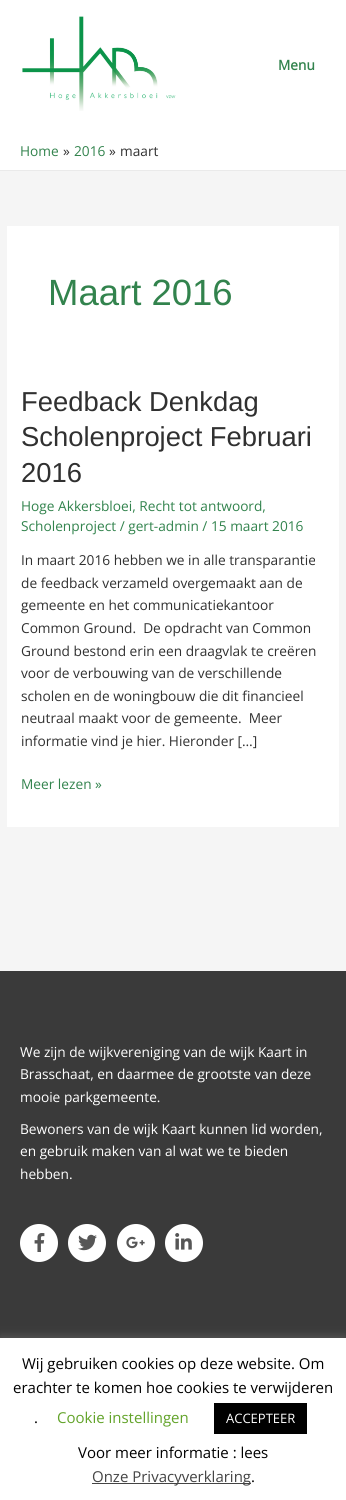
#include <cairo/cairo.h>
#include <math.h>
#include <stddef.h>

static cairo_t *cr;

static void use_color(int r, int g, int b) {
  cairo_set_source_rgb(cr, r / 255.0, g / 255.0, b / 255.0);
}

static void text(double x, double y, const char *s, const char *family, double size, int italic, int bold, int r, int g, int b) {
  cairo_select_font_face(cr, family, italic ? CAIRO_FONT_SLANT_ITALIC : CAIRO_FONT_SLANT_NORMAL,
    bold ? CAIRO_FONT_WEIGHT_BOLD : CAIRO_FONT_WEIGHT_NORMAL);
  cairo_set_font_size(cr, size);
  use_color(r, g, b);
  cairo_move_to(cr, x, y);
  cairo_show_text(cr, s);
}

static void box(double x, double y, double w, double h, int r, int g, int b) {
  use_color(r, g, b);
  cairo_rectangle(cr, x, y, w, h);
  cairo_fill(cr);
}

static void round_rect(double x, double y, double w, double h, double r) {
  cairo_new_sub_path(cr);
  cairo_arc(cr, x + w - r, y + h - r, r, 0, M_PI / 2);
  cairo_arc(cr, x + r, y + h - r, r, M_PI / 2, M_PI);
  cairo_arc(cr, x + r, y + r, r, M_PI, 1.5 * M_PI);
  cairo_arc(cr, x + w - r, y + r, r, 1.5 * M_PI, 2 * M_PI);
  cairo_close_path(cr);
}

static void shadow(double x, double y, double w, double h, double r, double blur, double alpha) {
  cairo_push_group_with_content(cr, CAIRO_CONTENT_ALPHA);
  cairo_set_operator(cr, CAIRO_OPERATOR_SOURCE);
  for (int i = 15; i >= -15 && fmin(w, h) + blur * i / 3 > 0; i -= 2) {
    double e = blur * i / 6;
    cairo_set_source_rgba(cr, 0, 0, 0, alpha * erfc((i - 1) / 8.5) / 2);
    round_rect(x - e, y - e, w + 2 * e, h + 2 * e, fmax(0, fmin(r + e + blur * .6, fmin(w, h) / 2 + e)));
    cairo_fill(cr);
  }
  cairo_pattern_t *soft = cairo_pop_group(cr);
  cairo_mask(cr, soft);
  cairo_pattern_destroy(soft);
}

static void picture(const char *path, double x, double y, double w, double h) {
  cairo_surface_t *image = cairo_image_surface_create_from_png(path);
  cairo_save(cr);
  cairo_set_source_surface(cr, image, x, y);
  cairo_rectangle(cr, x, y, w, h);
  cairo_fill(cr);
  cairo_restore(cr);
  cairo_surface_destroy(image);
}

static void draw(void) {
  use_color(245, 245, 245);
  cairo_paint(cr);
  box(0, 0, 346, 170, 255, 255, 255);
  picture("img_01.png", 22, 16, 154, 95);
  box(0, 170, 346, 1, 234, 234, 234);
  box(7, 226, 332, 601, 255, 255, 255);
  box(0, 971, 346, 367, 58, 58, 58);
  use_color(255, 255, 255);
  cairo_arc(cr, 39, 1243, 19, 0, 2 * M_PI);
  cairo_fill(cr);
  picture("img_02.png", 34, 1233, 11, 19);
  cairo_arc(cr, 87, 1243, 19, 0, 2 * M_PI);
  cairo_fill(cr);
  picture("img_03.png", 78, 1234, 19, 17);
  cairo_arc(cr, 136, 1243, 19, 0, 2 * M_PI);
  cairo_fill(cr);
  picture("img_04.png", 126, 1236, 19, 13);
  cairo_arc(cr, 184, 1243, 19, 0, 2 * M_PI);
  cairo_fill(cr);
  picture("img_05.png", 175, 1233, 17, 17);
  use_color(172, 171, 171);
  shadow(0, 1337, 346, 162, 0, 5, 0.3);
  box(0, 1338, 346, 162, 255, 255, 255);
  box(214, 1403, 93, 31, 0, 0, 0);
  box(92, 1483, 159, 1, 68, 68, 68);
  text(278, 70, "Menu", "Open Sans", 13.7, 0, 1, 50, 131, 77);
  text(20, 156, "Home", "Open Sans", 13.7, 0, 0, 50, 131, 77);
  text(63, 156, "»", "Open Sans", 13.7, 0, 0, 48, 48, 48);
  text(74, 156, "2016", "Open Sans", 13.7, 0, 0, 50, 131, 77);
  text(109, 156, "»", "Open Sans", 13.7, 0, 0, 48, 48, 48);
  text(120, 156, "maart", "Open Sans", 13.7, 0, 0, 48, 48, 48);
  text(48, 305, "Maart 2016", "Liberation Sans", 36.5, 0, 0, 50, 131, 77);
  text(21, 411, "Feedback Denkdag", "Liberation Sans", 27.4, 0, 0, 48, 48, 48);
  text(21, 446, "Scholenproject Februari", "Liberation Sans", 27.4, 0, 0, 48, 48, 48);
  text(21, 482, "2016", "Liberation Sans", 27.4, 0, 0, 48, 48, 48);
  text(21, 511, "Hoge Akkersbloei, Recht tot antwoord,", "Open Sans", 13.7, 0, 0, 50, 131, 77);
  text(21, 531, "Scholenproject / gert-admin / 15 maart 2016", "Open Sans", 13.7, 0, 0, 50, 131, 77);
  text(21, 565, "In maart 2016 hebben we in alle transparantie", "Open Sans", 13.7, 0, 0, 48, 48, 48);
  text(21, 588, "de feedback verzameld overgemaakt aan de", "Open Sans", 13.7, 0, 0, 48, 48, 48);
  text(21, 610, "gemeente en het communicatiekantoor", "Open Sans", 13.7, 0, 0, 48, 48, 48);
  text(21, 633, "Common Ground.  De opdracht van Common", "Open Sans", 13.7, 0, 0, 48, 48, 48);
  text(21, 656, "Ground bestond erin een draagvlak te creëren", "Open Sans", 13.7, 0, 0, 48, 48, 48);
  text(21, 678, "voor de verbouwing van de verschillende", "Open Sans", 13.7, 0, 0, 48, 48, 48);
  text(21, 701, "scholen en de woningbouw die dit financieel", "Open Sans", 13.7, 0, 0, 48, 48, 48);
  text(21, 723, "neutraal maakt voor de gemeente.  Meer", "Open Sans", 13.7, 0, 0, 48, 48, 48);
  text(21, 746, "informatie vind je hier. Hieronder […]", "Open Sans", 13.7, 0, 0, 48, 48, 48);
  text(21, 789, "Meer lezen »", "Open Sans", 13.7, 0, 0, 50, 131, 77);
  text(20, 1057, "We zijn de wijkvereniging van de wijk Kaart in", "Open Sans", 13.7, 0, 0, 255, 255, 255);
  text(20, 1079, "Brasschaat, en daarmee de grootste van deze", "Open Sans", 13.7, 0, 0, 255, 255, 255);
  text(20, 1102, "mooie parkgemeente.", "Open Sans", 13.7, 0, 0, 255, 255, 255);
  text(20, 1134, "Bewoners van de wijk Kaart kunnen lid worden,", "Open Sans", 13.7, 0, 0, 255, 255, 255);
  text(20, 1156, "en gebruik maken van al wat we te bieden", "Open Sans", 13.7, 0, 0, 255, 255, 255);
  text(20, 1179, "hebben.", "Open Sans", 13.7, 0, 0, 255, 255, 255);
  text(22, 1369, "Wij gebruiken cookies op deze website. Om", "Open Sans", 15, 0, 0, 0, 0, 0);
  text(13, 1393, "erachter te komen hoe cookies te verwijderen", "Open Sans", 15, 0, 0, 0, 0, 0);
  text(34, 1423, ".", "Open Sans", 15, 0, 0, 0, 0, 0);
  text(57, 1423, "Cookie instellingen", "Open Sans", 15, 0, 0, 98, 163, 41);
  text(226, 1423, "ACCEPTEER", "Open Sans", 13, 0, 0, 255, 255, 255);
  text(78, 1458, "Voor meer informatie : lees", "Open Sans", 15, 0, 0, 0, 0, 0);
  text(92, 1482, "Onze Privacyverklaring", "Open Sans", 15, 0, 0, 68, 68, 68);
  text(251, 1482, ".", "Open Sans", 15, 0, 0, 0, 0, 0);
}

int main(void) {
  cairo_surface_t *surface = cairo_image_surface_create(CAIRO_FORMAT_RGB24, 346, 1500);
  cr = cairo_create(surface);
  cairo_font_options_t *options = cairo_font_options_create();
  cairo_font_options_set_hint_metrics(options, CAIRO_HINT_METRICS_OFF);
  cairo_font_options_set_hint_style(options, CAIRO_HINT_STYLE_NONE);
  cairo_set_font_options(cr, options);
  cairo_set_miter_limit(cr, 4);
  draw();
  cairo_surface_write_to_png(surface, "out.png");
  cairo_font_options_destroy(options);
  cairo_destroy(cr);
  cairo_surface_destroy(surface);
  return 0;
}
